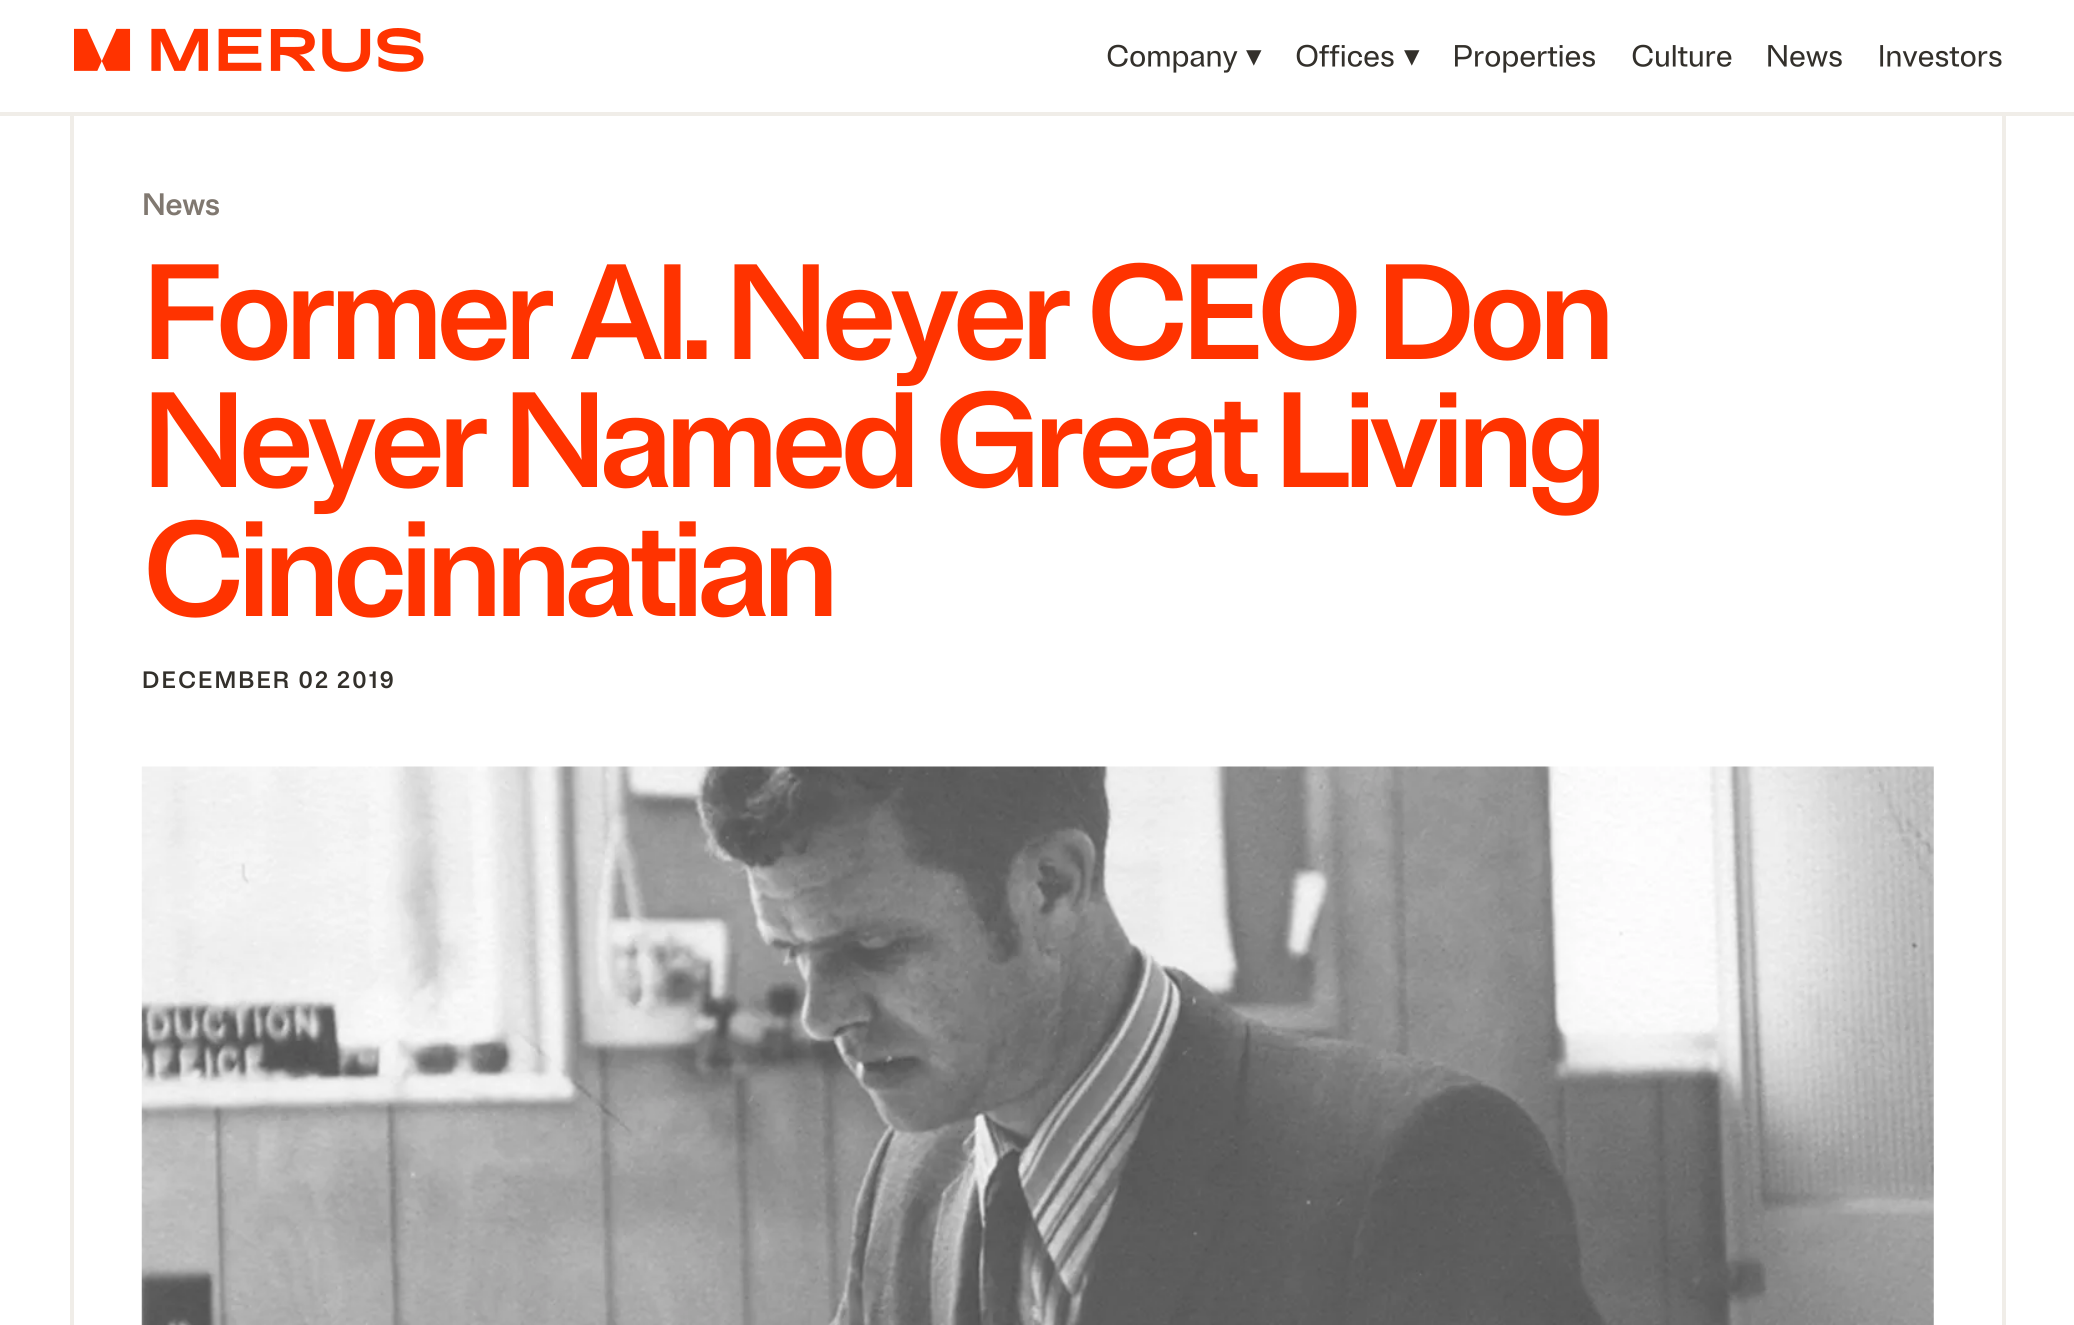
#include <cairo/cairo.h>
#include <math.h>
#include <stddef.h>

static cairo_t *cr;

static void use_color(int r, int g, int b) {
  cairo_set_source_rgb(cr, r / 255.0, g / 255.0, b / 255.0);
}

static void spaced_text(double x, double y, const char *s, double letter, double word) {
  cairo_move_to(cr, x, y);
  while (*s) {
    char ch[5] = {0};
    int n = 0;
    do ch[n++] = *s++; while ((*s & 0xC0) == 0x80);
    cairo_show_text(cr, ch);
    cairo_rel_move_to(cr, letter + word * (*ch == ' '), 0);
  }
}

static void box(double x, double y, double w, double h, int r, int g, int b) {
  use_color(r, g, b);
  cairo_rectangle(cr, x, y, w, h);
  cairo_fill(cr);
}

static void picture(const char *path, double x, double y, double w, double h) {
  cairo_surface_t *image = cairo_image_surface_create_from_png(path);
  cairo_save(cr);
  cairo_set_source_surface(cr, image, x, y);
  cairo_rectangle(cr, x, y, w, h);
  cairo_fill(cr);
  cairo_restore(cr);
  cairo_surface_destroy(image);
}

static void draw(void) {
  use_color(255, 255, 255);
  cairo_paint(cr);
  box(0, 112, 2074, 4, 240, 237, 232);
  picture("img_01.png", 74, 28, 350, 44);
  picture("img_02.png", 1107, 44, 131, 29);
  picture("img_03.png", 1296, 44, 98, 23);
  picture("img_04.png", 1455, 45, 140, 28);
  picture("img_05.png", 1632, 44, 100, 23);
  picture("img_06.png", 1768, 45, 74, 22);
  picture("img_07.png", 1880, 45, 122, 22);
  box(2002, 116, 4, 1209, 240, 237, 232);
  box(70, 116, 4, 1209, 240, 237, 232);
  picture("img_08.png", 141, 766, 1793, 559);
  cairo_select_font_face(cr, "DejaVu Sans", CAIRO_FONT_SLANT_NORMAL, CAIRO_FONT_WEIGHT_NORMAL);
  cairo_set_font_size(cr, 31);
  use_color(51, 48, 43);
  spaced_text(1246, 66, "▾", -0.5, 0);
  spaced_text(1404, 66, "▾", -0.5, 0);
  cairo_select_font_face(cr, "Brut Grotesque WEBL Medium", CAIRO_FONT_SLANT_NORMAL, CAIRO_FONT_WEIGHT_NORMAL);
  use_color(128, 120, 112);
  spaced_text(142, 215, "News", -0.5, 0);
  cairo_set_font_size(cr, 135.25);
  use_color(255, 51, 0);
  spaced_text(142, 359, "Former Al. Neyer CEO Don", -7.5, 0);
  spaced_text(142, 487, "Neyer Named Great Living", -7.5, 0);
  spaced_text(142, 616, "Cincinnatian", -7.5, 0);
  cairo_set_font_size(cr, 23.75);
  use_color(51, 48, 43);
  spaced_text(142, 688, "DECEMBER 02 2019", 2, 0);
}

int main(void) {
  cairo_surface_t *surface = cairo_image_surface_create(CAIRO_FORMAT_RGB24, 2074, 1325);
  cr = cairo_create(surface);
  cairo_font_options_t *options = cairo_font_options_create();
  cairo_font_options_set_hint_metrics(options, CAIRO_HINT_METRICS_OFF);
  cairo_font_options_set_hint_style(options, CAIRO_HINT_STYLE_NONE);
  cairo_set_font_options(cr, options);
  cairo_set_miter_limit(cr, 4);
  draw();
  cairo_surface_write_to_png(surface, "out.png");
  cairo_font_options_destroy(options);
  cairo_destroy(cr);
  cairo_surface_destroy(surface);
  return 0;
}
